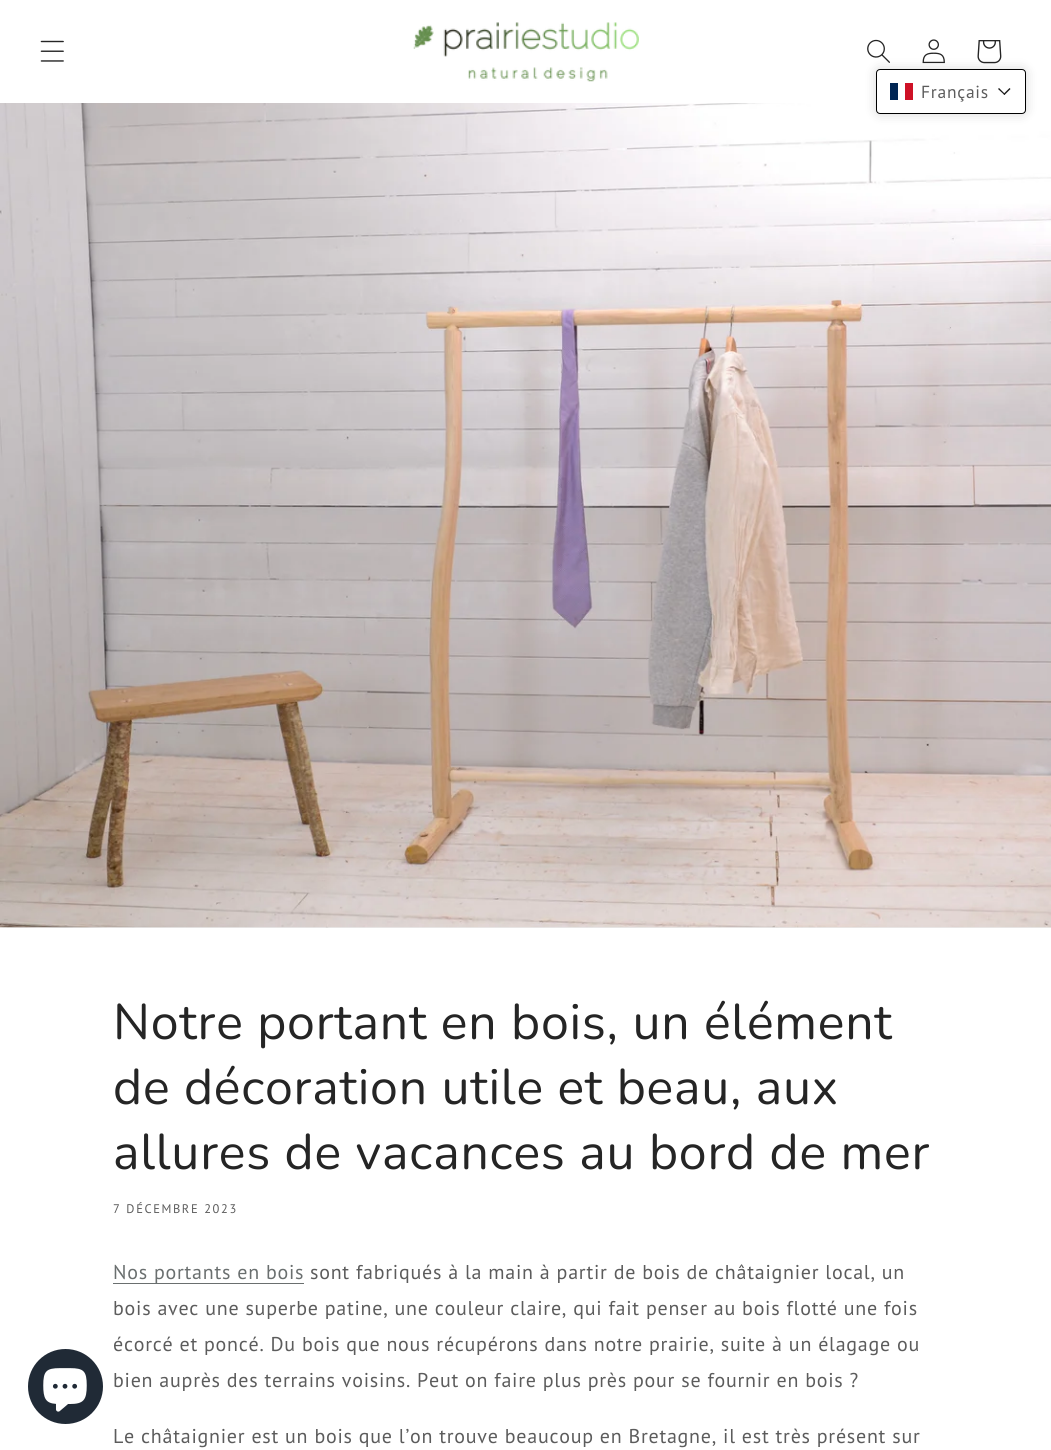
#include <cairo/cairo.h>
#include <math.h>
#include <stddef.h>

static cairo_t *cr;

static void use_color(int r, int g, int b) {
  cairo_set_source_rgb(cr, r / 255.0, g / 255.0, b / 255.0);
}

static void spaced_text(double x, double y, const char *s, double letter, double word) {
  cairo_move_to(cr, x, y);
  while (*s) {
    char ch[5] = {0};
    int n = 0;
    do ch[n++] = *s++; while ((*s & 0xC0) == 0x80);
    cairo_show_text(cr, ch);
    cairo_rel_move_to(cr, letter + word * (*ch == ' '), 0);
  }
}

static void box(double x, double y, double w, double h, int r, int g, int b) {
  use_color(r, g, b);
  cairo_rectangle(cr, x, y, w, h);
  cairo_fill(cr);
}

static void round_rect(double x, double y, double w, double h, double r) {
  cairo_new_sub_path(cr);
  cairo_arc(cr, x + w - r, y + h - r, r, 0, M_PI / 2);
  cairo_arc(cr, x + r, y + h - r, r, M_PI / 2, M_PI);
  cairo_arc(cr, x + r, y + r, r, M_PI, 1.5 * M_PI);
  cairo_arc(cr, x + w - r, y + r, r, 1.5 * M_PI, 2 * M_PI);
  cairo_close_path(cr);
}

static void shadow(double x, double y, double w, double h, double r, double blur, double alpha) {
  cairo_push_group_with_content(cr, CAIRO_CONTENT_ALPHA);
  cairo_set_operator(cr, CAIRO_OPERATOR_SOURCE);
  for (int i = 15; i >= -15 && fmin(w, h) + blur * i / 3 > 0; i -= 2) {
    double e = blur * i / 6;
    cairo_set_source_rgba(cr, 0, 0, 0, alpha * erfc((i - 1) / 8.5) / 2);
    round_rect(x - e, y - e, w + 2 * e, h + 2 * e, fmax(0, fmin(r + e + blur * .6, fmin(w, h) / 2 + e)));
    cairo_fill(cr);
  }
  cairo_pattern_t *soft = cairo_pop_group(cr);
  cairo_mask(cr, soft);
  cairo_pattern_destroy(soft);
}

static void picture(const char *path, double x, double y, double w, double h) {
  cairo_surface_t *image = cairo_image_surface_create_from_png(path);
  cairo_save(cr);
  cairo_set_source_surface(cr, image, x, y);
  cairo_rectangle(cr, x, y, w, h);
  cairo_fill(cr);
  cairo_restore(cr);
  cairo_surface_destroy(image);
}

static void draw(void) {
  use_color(255, 255, 255);
  cairo_paint(cr);
  picture("img_01.png", 40, 40, 24, 22);
  picture("img_02.png", 413, 22, 226, 60);
  picture("img_03.png", 867, 39, 23, 24);
  picture("img_04.png", 922, 39, 23, 25);
  picture("img_05.png", 977, 40, 25, 24);
  box(0, 927, 1051, 1, 234, 234, 234);
  picture("img_07.png", 0, 103, 1051, 825);
  use_color(0, 0, 0);
  shadow(876, 69, 150, 45, 4, 6, 0.15);
  use_color(255, 255, 255);
  round_rect(876.5, 69.5, 149, 44, 3.5);
  cairo_fill_preserve(cr);
  use_color(0, 0, 0);
  cairo_set_line_width(cr, 1);
  cairo_stroke(cr);
  box(890, 83, 8, 17, 0, 38, 84);
  box(905, 83, 8, 17, 206, 17, 38);
  use_color(26, 26, 26);
  cairo_new_path(cr);
  cairo_move_to(cr, 1009.5, 88);
  cairo_line_to(cr, 1010.5, 89);
  cairo_line_to(cr, 1004.5, 95);
  cairo_line_to(cr, 1003.5, 94);
  cairo_close_path(cr);
  cairo_fill(cr);
  cairo_new_path(cr);
  cairo_move_to(cr, 999, 88);
  cairo_line_to(cr, 1005, 94);
  cairo_line_to(cr, 1004.5, 95);
  cairo_line_to(cr, 998, 89);
  cairo_close_path(cr);
  cairo_fill(cr);
  use_color(32, 42, 54);
  cairo_arc(cr, 65.5, 1386.5, 37.5, 0, 2 * M_PI);
  cairo_fill(cr);
  picture("img_06.png", 43, 1368, 44, 44);
  box(113, 1283, 191, 1, 106, 111, 111);
  cairo_select_font_face(cr, "PT Sans", CAIRO_FONT_SLANT_NORMAL, CAIRO_FONT_WEIGHT_NORMAL);
  cairo_set_font_size(cr, 17.5);
  use_color(92, 92, 92);
  spaced_text(921, 98, "Français", 0.75, 0);
  cairo_select_font_face(cr, "Nunito", CAIRO_FONT_SLANT_NORMAL, CAIRO_FONT_WEIGHT_NORMAL);
  cairo_set_font_size(cr, 50);
  use_color(37, 37, 37);
  spaced_text(113, 1039, "Notre portant en bois, un élément", 0.75, 0);
  spaced_text(113, 1104, "de décoration utile et beau, aux", 0.75, 0);
  spaced_text(113, 1169, "allures de vacances au bord de mer", 0.75, 0);
  cairo_select_font_face(cr, "PT Sans", CAIRO_FONT_SLANT_NORMAL, CAIRO_FONT_WEIGHT_NORMAL);
  cairo_set_font_size(cr, 12.5);
  use_color(92, 92, 92);
  spaced_text(113, 1213, "7 DÉCEMBRE 2023", 1.6, 0);
  cairo_set_font_size(cr, 20);
  use_color(106, 111, 111);
  spaced_text(113, 1279, "Nos portants en bois", 0.75, 0);
  use_color(92, 92, 92);
  spaced_text(310, 1279, "sont fabriqués à la main à partir de bois de châtaignier local, un", 0.75, 0);
  spaced_text(113, 1315, "bois avec une superbe patine, une couleur claire, qui fait penser au bois flotté une fois", 0.75, 0);
  spaced_text(113, 1351, "écorcé et poncé. Du bois que nous récupérons dans notre prairie, suite à un élagage ou", 0.75, 0);
  spaced_text(113, 1387, "bien auprès des terrains voisins. Peut on faire plus près pour se fournir en bois ?", 0.75, 0);
  spaced_text(113, 1443, "Le châtaignier est un bois que l’on trouve beaucoup en Bretagne, il est très présent sur", 0.75, 0);
}

int main(void) {
  cairo_surface_t *surface = cairo_image_surface_create(CAIRO_FORMAT_RGB24, 1051, 1450);
  cr = cairo_create(surface);
  cairo_font_options_t *options = cairo_font_options_create();
  cairo_font_options_set_hint_metrics(options, CAIRO_HINT_METRICS_OFF);
  cairo_font_options_set_hint_style(options, CAIRO_HINT_STYLE_NONE);
  cairo_set_font_options(cr, options);
  cairo_set_miter_limit(cr, 4);
  draw();
  cairo_surface_write_to_png(surface, "out.png");
  cairo_font_options_destroy(options);
  cairo_destroy(cr);
  cairo_surface_destroy(surface);
  return 0;
}
